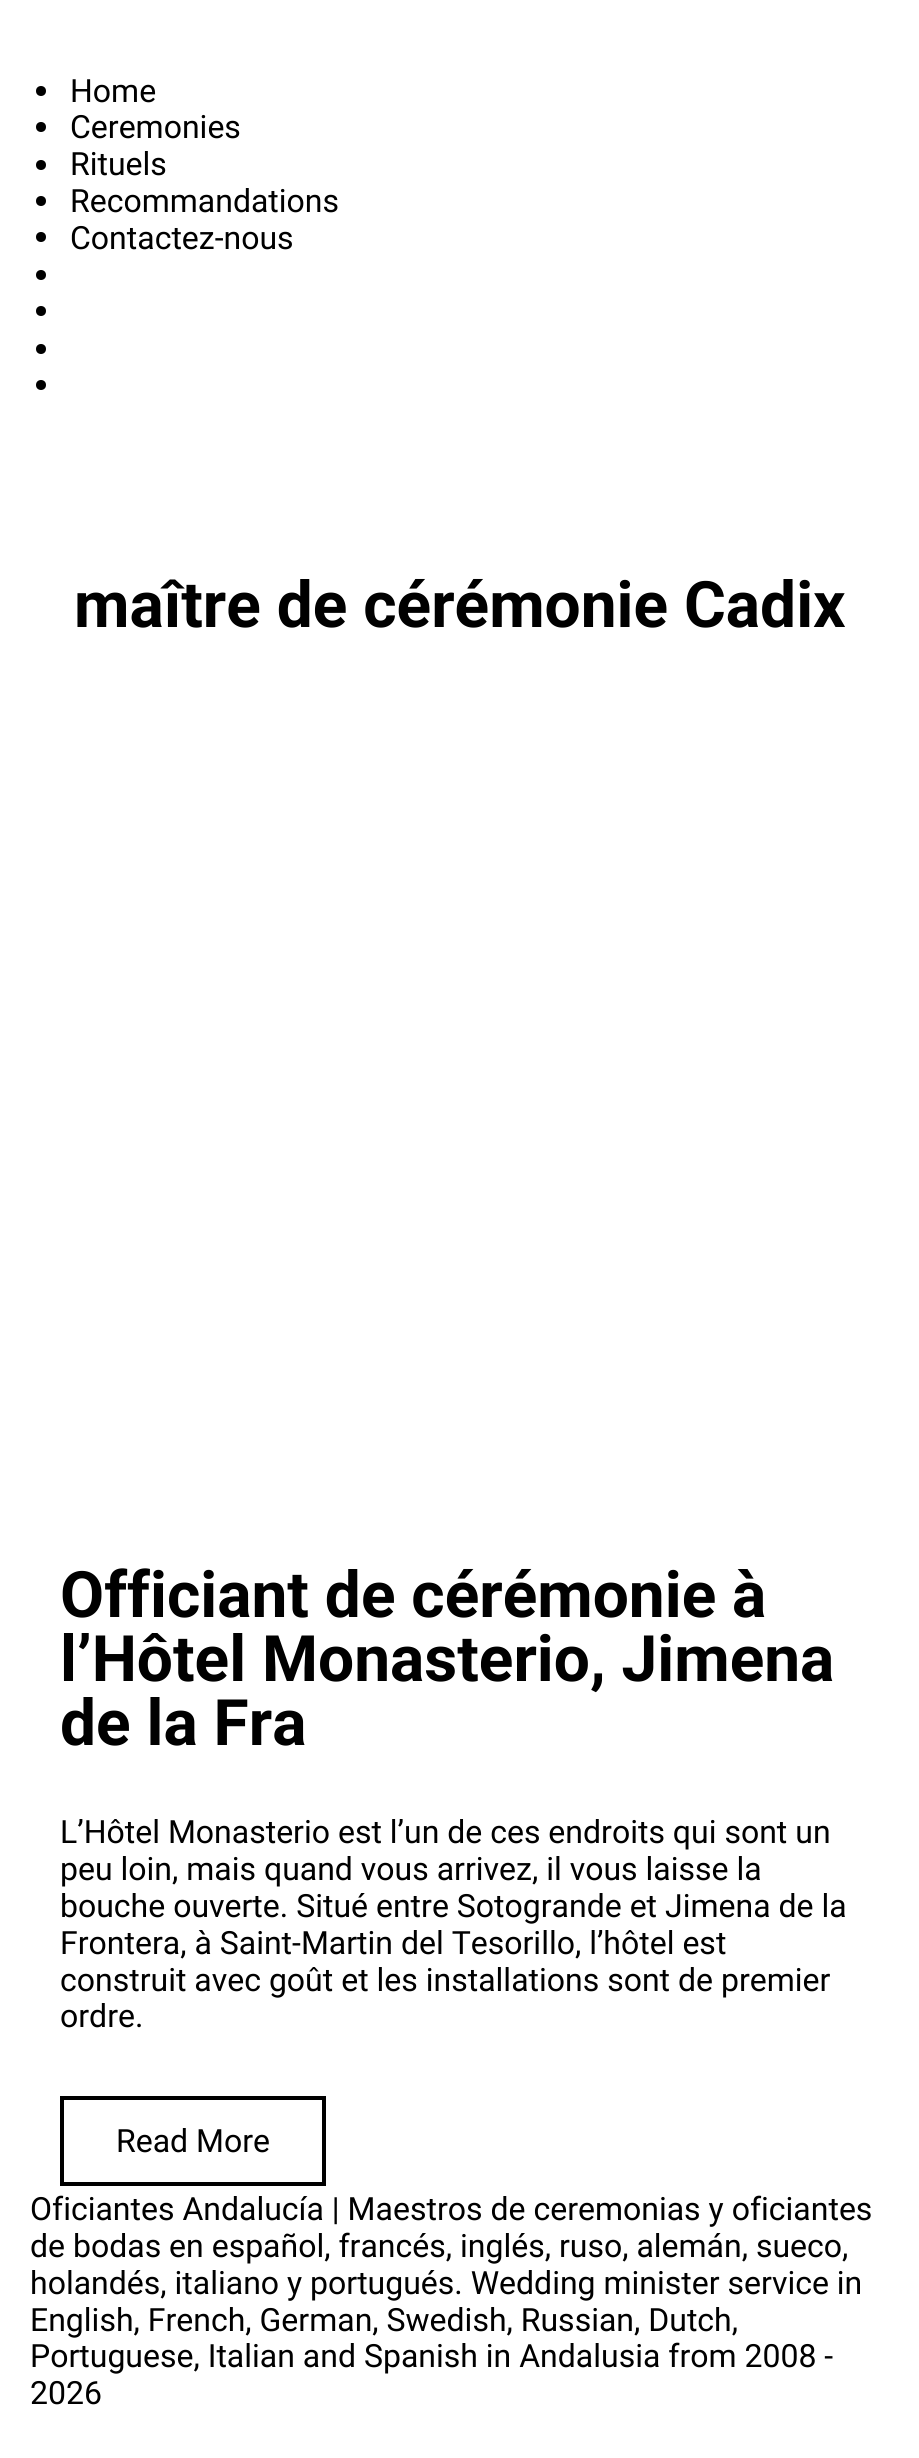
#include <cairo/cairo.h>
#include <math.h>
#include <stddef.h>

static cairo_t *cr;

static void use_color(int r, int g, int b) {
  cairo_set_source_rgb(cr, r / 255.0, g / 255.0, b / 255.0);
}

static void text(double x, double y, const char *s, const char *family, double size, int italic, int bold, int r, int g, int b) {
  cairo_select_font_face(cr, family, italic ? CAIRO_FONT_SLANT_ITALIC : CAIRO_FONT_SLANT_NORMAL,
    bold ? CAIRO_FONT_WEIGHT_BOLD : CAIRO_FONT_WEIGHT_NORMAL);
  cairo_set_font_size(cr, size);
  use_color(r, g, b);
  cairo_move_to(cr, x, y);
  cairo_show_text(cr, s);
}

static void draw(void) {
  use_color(255, 255, 255);
  cairo_paint(cr);
  use_color(0, 0, 0);
  cairo_arc(cr, 41, 91, 5, 0, 2 * M_PI);
  cairo_fill(cr);
  cairo_arc(cr, 41, 127, 5, 0, 2 * M_PI);
  cairo_fill(cr);
  cairo_arc(cr, 41, 165, 5, 0, 2 * M_PI);
  cairo_fill(cr);
  cairo_arc(cr, 41, 201, 5, 0, 2 * M_PI);
  cairo_fill(cr);
  cairo_arc(cr, 41, 237, 5, 0, 2 * M_PI);
  cairo_fill(cr);
  cairo_arc(cr, 41, 275, 5, 0, 2 * M_PI);
  cairo_fill(cr);
  cairo_arc(cr, 41, 311, 5, 0, 2 * M_PI);
  cairo_fill(cr);
  cairo_arc(cr, 41, 349, 5, 0, 2 * M_PI);
  cairo_fill(cr);
  cairo_arc(cr, 41, 385, 5, 0, 2 * M_PI);
  cairo_fill(cr);
  cairo_rectangle(cr, 62, 2098, 262, 86);
  cairo_set_line_width(cr, 4);
  cairo_stroke(cr);
  text(70, 102, "Home", "Roboto", 32, 0, 0, 0, 0, 0);
  text(70, 138, "Ceremonies", "Roboto", 32, 0, 0, 0, 0, 0);
  text(70, 175, "Rituels", "Roboto", 32, 0, 0, 0, 0, 0);
  text(70, 212, "Recommandations", "Roboto", 32, 0, 0, 0, 0, 0);
  text(70, 249, "Contactez-nous", "Roboto", 32, 0, 0, 0, 0, 0);
  text(74, 627, "maître de cérémonie Cadix", "Roboto", 64, 0, 1, 0, 0, 0);
  text(60, 1617, "Officiant de cérémonie à", "Roboto", 64, 0, 1, 0, 0, 0);
  text(60, 1681, "l’Hôtel Monasterio, Jimena", "Roboto", 64, 0, 1, 0, 0, 0);
  text(60, 1745, "de la Fra", "Roboto", 64, 0, 1, 0, 0, 0);
  text(60, 1843, "L’Hôtel Monasterio est l’un de ces endroits qui sont un", "Roboto", 32, 0, 0, 0, 0, 0);
  text(60, 1880, "peu loin, mais quand vous arrivez, il vous laisse la", "Roboto", 32, 0, 0, 0, 0, 0);
  text(60, 1917, "bouche ouverte. Situé entre Sotogrande et Jimena de la", "Roboto", 32, 0, 0, 0, 0, 0);
  text(60, 1954, "Frontera, à Saint-Martin del Tesorillo, l’hôtel est", "Roboto", 32, 0, 0, 0, 0, 0);
  text(60, 1991, "construit avec goût et les installations sont de premier", "Roboto", 32, 0, 0, 0, 0, 0);
  text(60, 2027, "ordre.", "Roboto", 32, 0, 0, 0, 0, 0);
  text(116, 2152, "Read More", "Roboto", 32, 0, 0, 0, 0, 0);
  text(30, 2220, "Oficiantes Andalucía | Maestros de ceremonias y oficiantes", "Roboto", 32, 0, 0, 0, 0, 0);
  text(30, 2257, "de bodas en español, francés, inglés, ruso, alemán, sueco,", "Roboto", 32, 0, 0, 0, 0, 0);
  text(30, 2294, "holandés, italiano y portugués. Wedding minister service in", "Roboto", 32, 0, 0, 0, 0, 0);
  text(30, 2331, "English, French, German, Swedish, Russian, Dutch,", "Roboto", 32, 0, 0, 0, 0, 0);
  text(30, 2367, "Portuguese, Italian and Spanish in Andalusia from 2008 -", "Roboto", 32, 0, 0, 0, 0, 0);
  text(30, 2404, "2026", "Roboto", 32, 0, 0, 0, 0, 0);
}

int main(void) {
  cairo_surface_t *surface = cairo_image_surface_create(CAIRO_FORMAT_RGB24, 919, 2458);
  cr = cairo_create(surface);
  cairo_font_options_t *options = cairo_font_options_create();
  cairo_font_options_set_hint_metrics(options, CAIRO_HINT_METRICS_OFF);
  cairo_font_options_set_hint_style(options, CAIRO_HINT_STYLE_NONE);
  cairo_set_font_options(cr, options);
  cairo_set_miter_limit(cr, 4);
  draw();
  cairo_surface_write_to_png(surface, "out.png");
  cairo_font_options_destroy(options);
  cairo_destroy(cr);
  cairo_surface_destroy(surface);
  return 0;
}
